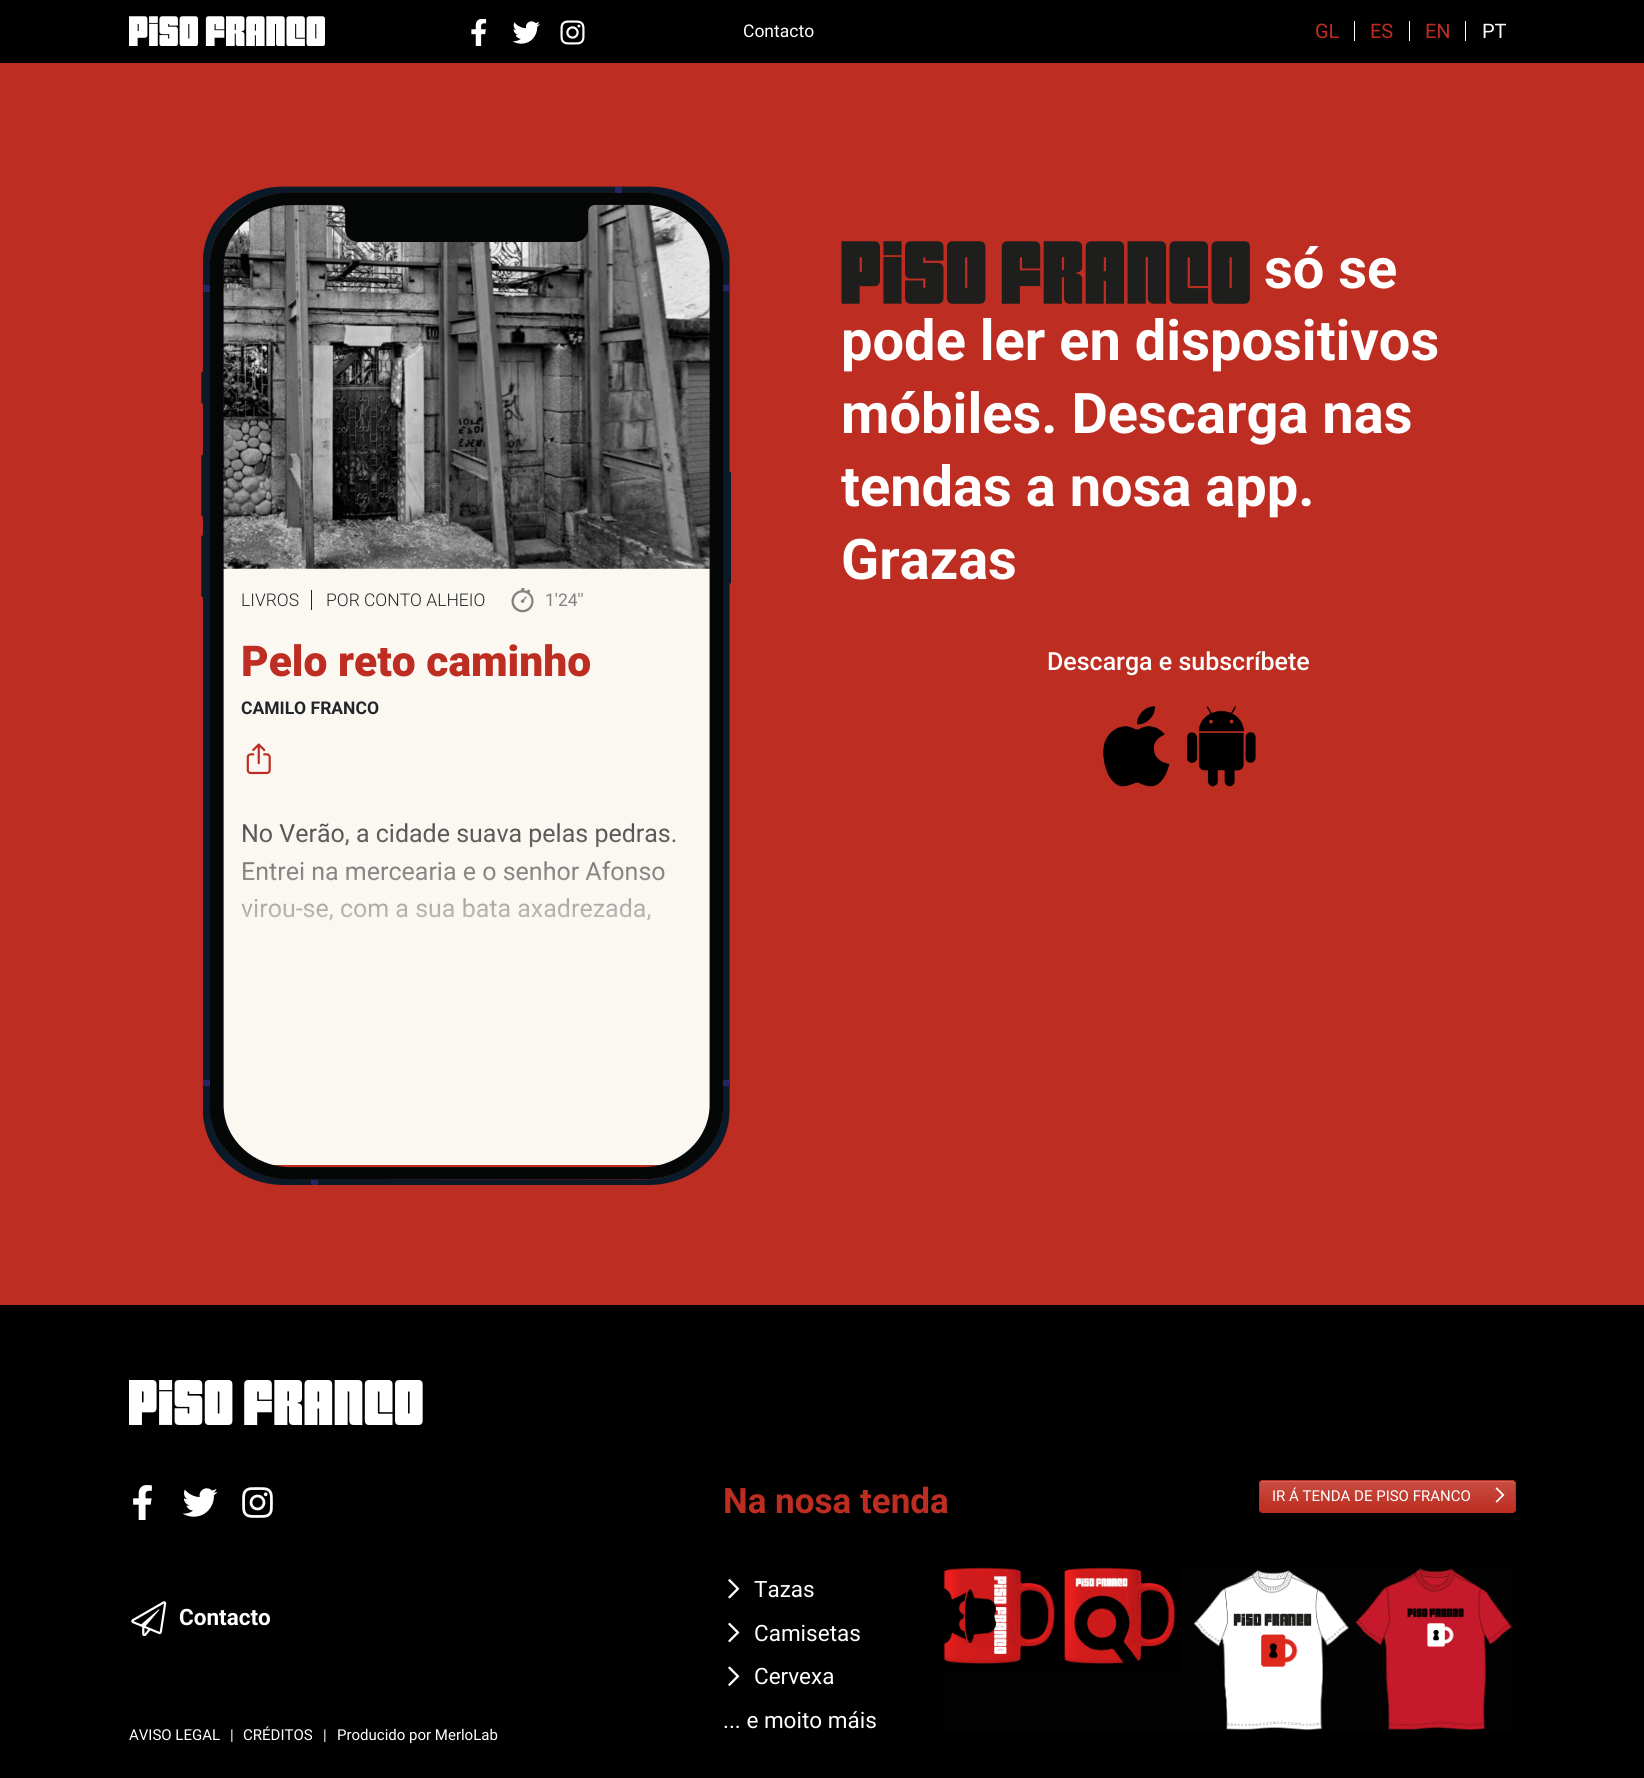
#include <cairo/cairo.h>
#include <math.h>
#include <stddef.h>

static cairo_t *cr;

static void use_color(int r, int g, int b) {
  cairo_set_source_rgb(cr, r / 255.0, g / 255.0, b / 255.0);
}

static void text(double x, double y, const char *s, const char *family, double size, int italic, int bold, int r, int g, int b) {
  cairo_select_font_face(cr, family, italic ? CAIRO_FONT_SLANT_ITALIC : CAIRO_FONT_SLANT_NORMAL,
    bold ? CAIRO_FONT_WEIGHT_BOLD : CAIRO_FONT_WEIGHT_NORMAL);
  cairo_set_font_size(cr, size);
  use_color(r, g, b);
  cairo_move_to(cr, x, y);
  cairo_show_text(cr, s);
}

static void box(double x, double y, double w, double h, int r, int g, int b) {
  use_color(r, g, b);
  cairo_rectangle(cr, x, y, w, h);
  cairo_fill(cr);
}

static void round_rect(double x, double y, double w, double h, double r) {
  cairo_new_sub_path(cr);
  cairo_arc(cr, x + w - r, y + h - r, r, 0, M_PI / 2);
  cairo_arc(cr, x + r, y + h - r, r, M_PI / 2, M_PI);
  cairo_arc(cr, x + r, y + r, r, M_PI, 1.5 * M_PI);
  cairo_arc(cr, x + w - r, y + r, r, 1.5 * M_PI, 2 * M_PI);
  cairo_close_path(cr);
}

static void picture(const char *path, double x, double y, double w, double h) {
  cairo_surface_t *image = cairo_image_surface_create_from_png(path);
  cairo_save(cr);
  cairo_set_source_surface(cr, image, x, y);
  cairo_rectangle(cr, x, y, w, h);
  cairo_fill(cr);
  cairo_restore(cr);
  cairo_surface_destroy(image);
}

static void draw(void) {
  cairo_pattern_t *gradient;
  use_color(190, 45, 33);
  cairo_paint(cr);
  box(0, 0, 1644, 63, 0, 0, 0);
  picture("img_01.png", 129, 16, 196, 30);
  picture("img_02.png", 471, 19, 16, 27);
  picture("img_03.png", 512, 21, 28, 23);
  picture("img_04.png", 560, 20, 25, 25);
  box(1354, 21, 1, 20, 255, 255, 255);
  box(1409, 21, 1, 20, 255, 255, 255);
  box(1465, 21, 1, 20, 255, 255, 255);
  picture("img_05.png", 841, 241, 409, 63);
  picture("img_06.png", 1103, 706, 67, 81);
  picture("img_07.png", 1187, 706, 69, 81);
  use_color(251, 248, 242);
  round_rect(223, 203, 487, 962, 23);
  cairo_fill(cr);
  picture("img_09.png", 223, 204, 487, 365);
  box(311, 590, 1, 20, 33, 37, 41);
  picture("img_10.png", 511, 588, 23, 25);
  picture("img_11.png", 246, 743, 25, 32);
  box(0, 1305, 1644, 473, 0, 0, 0);
  picture("img_12.png", 129, 1380, 294, 45);
  picture("img_13.png", 133, 1485, 19, 35);
  picture("img_14.png", 182, 1488, 36, 29);
  picture("img_15.png", 242, 1487, 31, 31);
  picture("img_16.png", 131, 1601, 36, 35);
  use_color(190, 45, 33);
  round_rect(1259, 1480, 257, 33, 4);
  cairo_fill(cr);
  cairo_save(cr);
  round_rect(1259, 1480, 257, 33, 4);
  cairo_clip(cr);
  gradient = cairo_pattern_create_linear(1388, 1481, 1388, 1511);
  cairo_pattern_add_color_stop_rgba(gradient, 0, 0.784, 0.302, 0.259, 1);
  cairo_pattern_add_color_stop_rgba(gradient, 1, 0.745, 0.176, 0.129, 1);
  cairo_set_source(cr, gradient);
  cairo_pattern_destroy(gradient);
  cairo_rectangle(cr, 1259, 1481, 257, 30);
  cairo_fill(cr);
  cairo_restore(cr);
  use_color(208, 103, 93);
  cairo_new_path(cr);
  cairo_move_to(cr, 1263, 1482);
  cairo_line_to(cr, 1512, 1482);
  cairo_curve_to(cr, 1514, 1482, 1515, 1484, 1515, 1485);
  cairo_line_to(cr, 1515, 1484);
  cairo_curve_to(cr, 1515, 1482, 1514, 1481, 1512, 1481);
  cairo_line_to(cr, 1262, 1481);
  cairo_curve_to(cr, 1261, 1481, 1260, 1482, 1260, 1484);
  cairo_line_to(cr, 1260, 1485);
  cairo_curve_to(cr, 1260, 1484, 1261, 1482, 1263, 1482);
  cairo_close_path(cr);
  cairo_fill(cr);
  round_rect(1259.5, 1480.5, 256, 32, 3.5);
  use_color(190, 45, 33);
  cairo_set_line_width(cr, 1);
  cairo_stroke(cr);
  picture("img_17.png", 1495, 1487, 10, 16);
  picture("img_18.png", 728, 1579, 12, 20);
  picture("img_19.png", 728, 1622, 12, 21);
  picture("img_20.png", 728, 1666, 12, 20);
  picture("img_21.png", 944, 1567, 568, 164);
  text(743, 37, "Contacto", "Roboto", 17.5, 0, 0, 255, 255, 255);
  text(1315, 38, "GL", "Roboto", 20, 0, 0, 190, 45, 33);
  text(1370, 38, "ES", "Roboto", 20, 0, 0, 190, 45, 33);
  text(1425, 38, "EN", "Roboto", 20, 0, 0, 190, 45, 33);
  text(1482, 38, "PT", "Roboto", 20, 0, 0, 255, 255, 255);
  text(1264, 288, "só se", "Roboto", 56, 0, 1, 255, 255, 255);
  text(841, 360, "pode ler en dispositivos", "Roboto", 56, 0, 1, 255, 255, 255);
  text(841, 433, "móbiles. Descarga nas", "Roboto", 56, 0, 1, 255, 255, 255);
  text(841, 506, "tendas a nosa app.", "Roboto", 56, 0, 1, 255, 255, 255);
  text(841, 579, "Grazas", "Roboto", 56, 0, 1, 255, 255, 255);
  text(1047, 670, "Descarga e subscríbete", "Roboto Medium", 25, 0, 0, 255, 255, 255);
  text(241, 606, "LIVROS", "Roboto Light", 17.5, 0, 0, 33, 37, 41);
  text(326, 606, "POR CONTO ALHEIO", "Roboto Light", 17.5, 0, 0, 33, 37, 41);
  text(545, 606, "1'24''", "Roboto", 17.5, 0, 0, 130, 130, 130);
  text(241, 676, "Pelo reto caminho", "Roboto Black", 42.5, 0, 0, 190, 45, 33);
  text(241, 714, "CAMILO FRANCO", "Roboto", 17.5, 0, 1, 33, 37, 41);
  picture("img_08.png", 201, 186, 530, 999);
  text(241, 842, "No Verão, a cidade suava pelas pedras.", "Roboto", 25, 0, 0, 68, 68, 68);
  text(241, 880, "Entrei na mercearia e o senhor Afonso", "Roboto", 25, 0, 0, 68, 68, 68);
  text(241, 917, "virou-se, com a sua bata axadrezada,", "Roboto", 25, 0, 0, 68, 68, 68);
  gradient = cairo_pattern_create_linear(466, 1040, 466, 815);
  cairo_pattern_add_color_stop_rgba(gradient, 0.3, 0.984, 0.973, 0.949, 1);
  cairo_pattern_add_color_stop_rgba(gradient, 1, 0.984, 0.973, 0.949, 0);
  cairo_set_source(cr, gradient);
  cairo_pattern_destroy(gradient);
  cairo_rectangle(cr, 241, 823, 435, 98);
  cairo_fill(cr);
  text(179, 1625, "Contacto", "Roboto", 22.5, 0, 1, 255, 255, 255);
  text(129, 1740, "AVISO LEGAL", "Roboto", 15, 0, 0, 255, 255, 255);
  text(230, 1740, "|", "Roboto", 15, 0, 0, 255, 255, 255);
  text(243, 1740, "CRÉDITOS", "Roboto", 15, 0, 0, 255, 255, 255);
  text(323, 1740, "|", "Roboto", 15, 0, 0, 255, 255, 255);
  text(337, 1740, "Producido por MerloLab", "Roboto", 15, 0, 0, 255, 255, 255);
  text(723, 1513, "Na nosa tenda", "Roboto", 35, 0, 1, 190, 45, 33);
  text(1272, 1501, "IR Á TENDA DE PISO FRANCO", "Roboto", 15, 0, 0, 255, 255, 255);
  text(754, 1597, "Tazas", "Roboto", 22.5, 0, 0, 255, 255, 255);
  text(754, 1641, "Camisetas", "Roboto", 22.5, 0, 0, 255, 255, 255);
  text(754, 1684, "Cervexa", "Roboto", 22.5, 0, 0, 255, 255, 255);
  text(723, 1728, "... e moito máis", "Roboto", 22.5, 0, 0, 255, 255, 255);
}

int main(void) {
  cairo_surface_t *surface = cairo_image_surface_create(CAIRO_FORMAT_RGB24, 1644, 1778);
  cr = cairo_create(surface);
  cairo_font_options_t *options = cairo_font_options_create();
  cairo_font_options_set_hint_metrics(options, CAIRO_HINT_METRICS_OFF);
  cairo_font_options_set_hint_style(options, CAIRO_HINT_STYLE_NONE);
  cairo_set_font_options(cr, options);
  cairo_set_miter_limit(cr, 4);
  draw();
  cairo_surface_write_to_png(surface, "out.png");
  cairo_font_options_destroy(options);
  cairo_destroy(cr);
  cairo_surface_destroy(surface);
  return 0;
}
